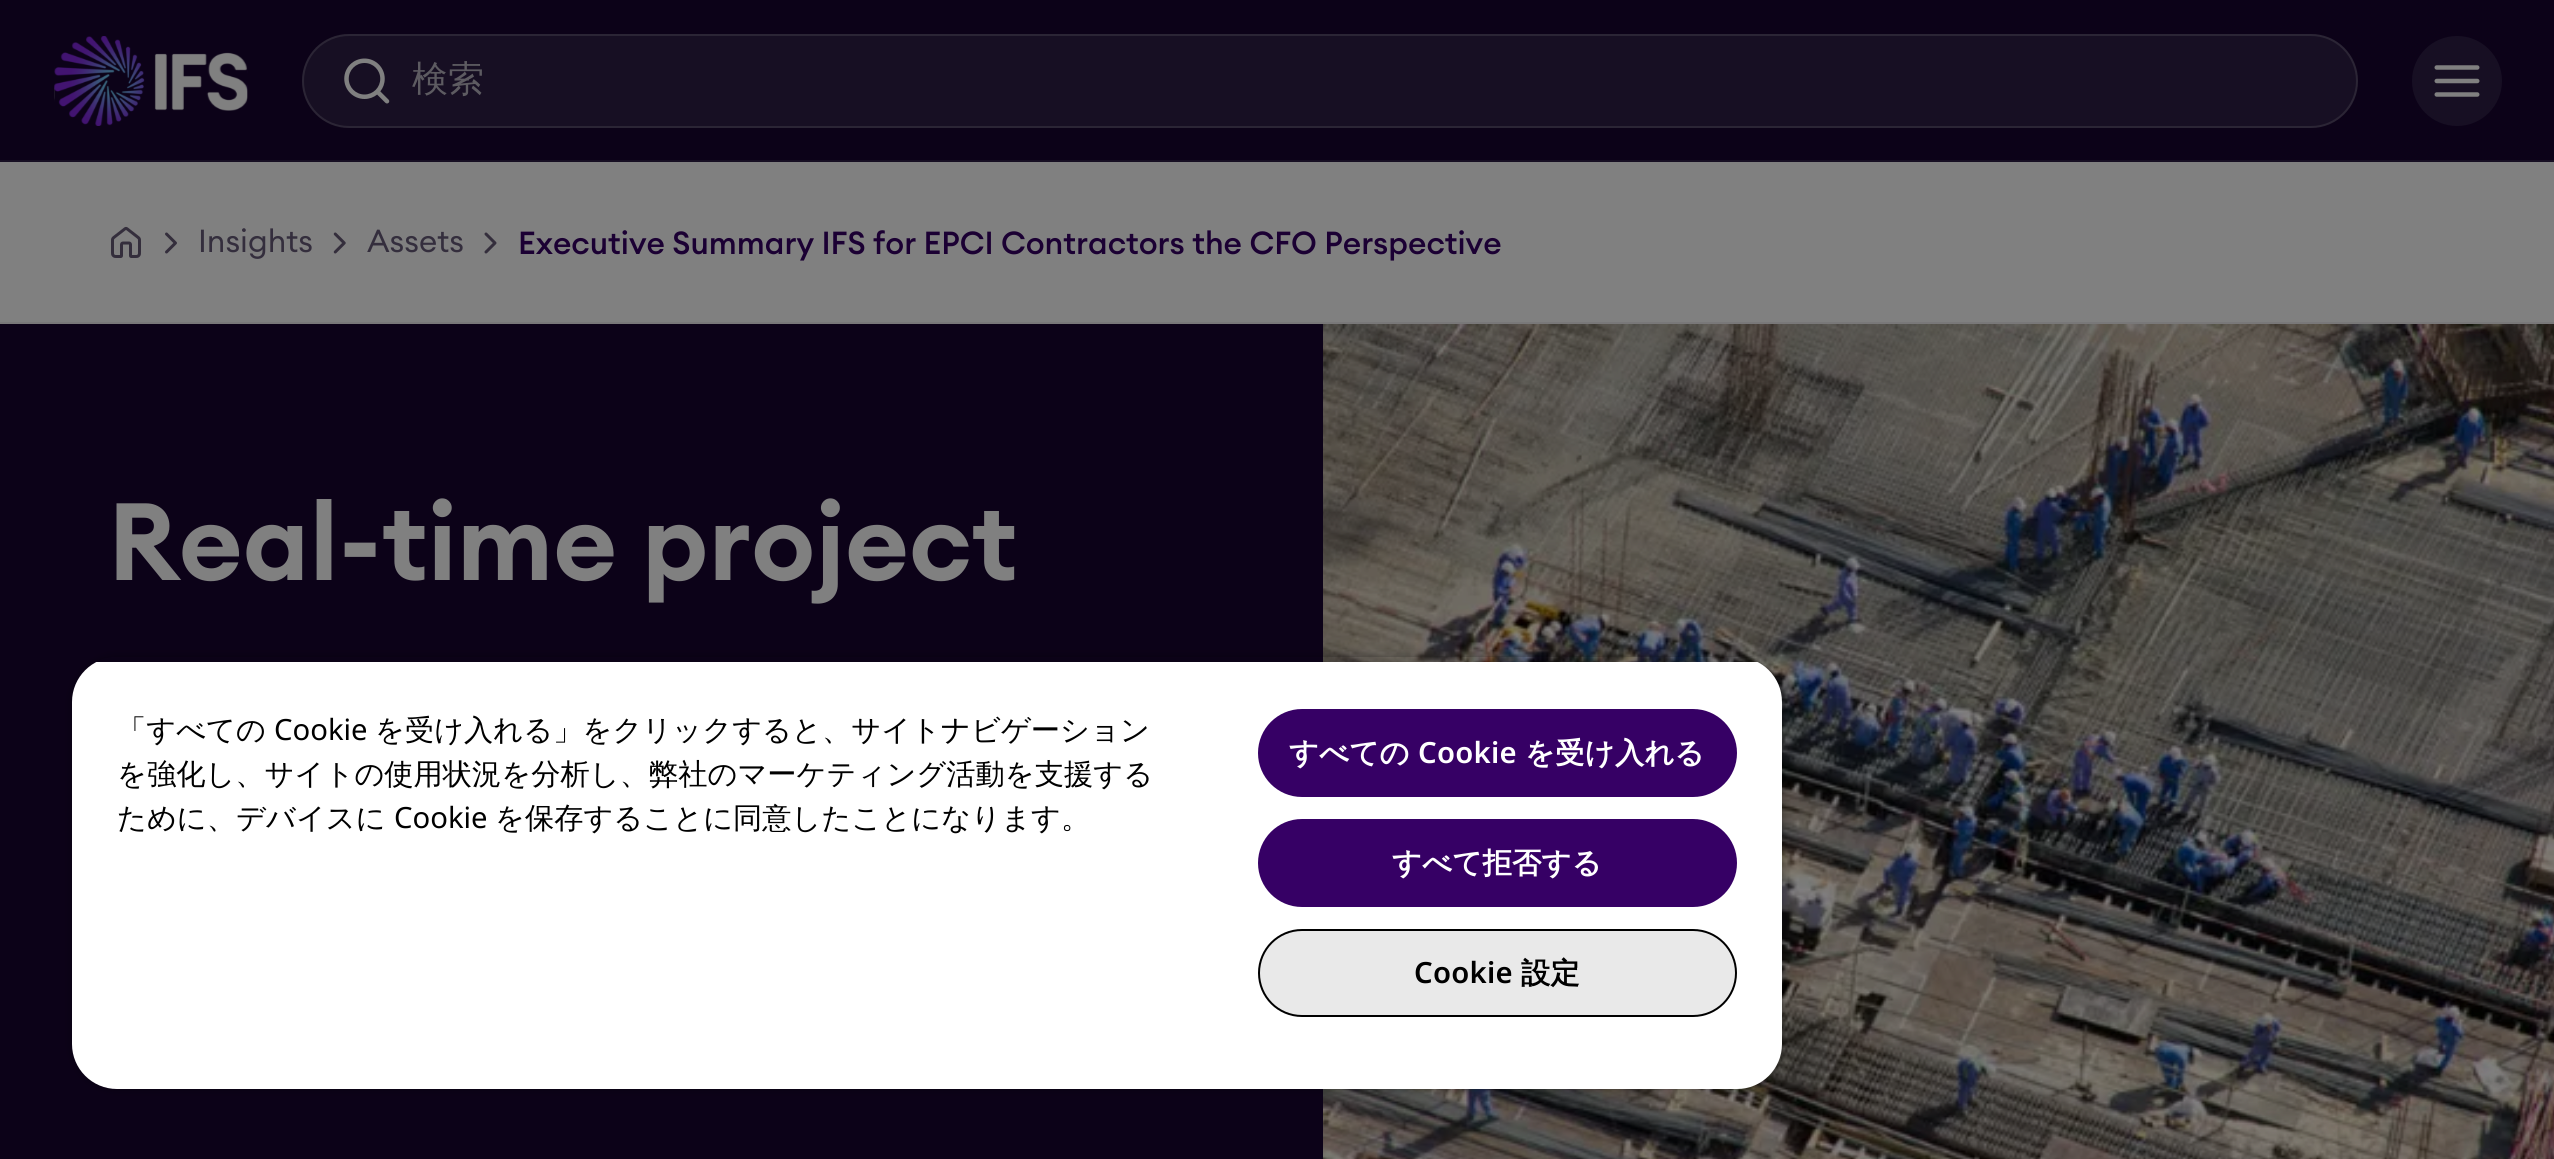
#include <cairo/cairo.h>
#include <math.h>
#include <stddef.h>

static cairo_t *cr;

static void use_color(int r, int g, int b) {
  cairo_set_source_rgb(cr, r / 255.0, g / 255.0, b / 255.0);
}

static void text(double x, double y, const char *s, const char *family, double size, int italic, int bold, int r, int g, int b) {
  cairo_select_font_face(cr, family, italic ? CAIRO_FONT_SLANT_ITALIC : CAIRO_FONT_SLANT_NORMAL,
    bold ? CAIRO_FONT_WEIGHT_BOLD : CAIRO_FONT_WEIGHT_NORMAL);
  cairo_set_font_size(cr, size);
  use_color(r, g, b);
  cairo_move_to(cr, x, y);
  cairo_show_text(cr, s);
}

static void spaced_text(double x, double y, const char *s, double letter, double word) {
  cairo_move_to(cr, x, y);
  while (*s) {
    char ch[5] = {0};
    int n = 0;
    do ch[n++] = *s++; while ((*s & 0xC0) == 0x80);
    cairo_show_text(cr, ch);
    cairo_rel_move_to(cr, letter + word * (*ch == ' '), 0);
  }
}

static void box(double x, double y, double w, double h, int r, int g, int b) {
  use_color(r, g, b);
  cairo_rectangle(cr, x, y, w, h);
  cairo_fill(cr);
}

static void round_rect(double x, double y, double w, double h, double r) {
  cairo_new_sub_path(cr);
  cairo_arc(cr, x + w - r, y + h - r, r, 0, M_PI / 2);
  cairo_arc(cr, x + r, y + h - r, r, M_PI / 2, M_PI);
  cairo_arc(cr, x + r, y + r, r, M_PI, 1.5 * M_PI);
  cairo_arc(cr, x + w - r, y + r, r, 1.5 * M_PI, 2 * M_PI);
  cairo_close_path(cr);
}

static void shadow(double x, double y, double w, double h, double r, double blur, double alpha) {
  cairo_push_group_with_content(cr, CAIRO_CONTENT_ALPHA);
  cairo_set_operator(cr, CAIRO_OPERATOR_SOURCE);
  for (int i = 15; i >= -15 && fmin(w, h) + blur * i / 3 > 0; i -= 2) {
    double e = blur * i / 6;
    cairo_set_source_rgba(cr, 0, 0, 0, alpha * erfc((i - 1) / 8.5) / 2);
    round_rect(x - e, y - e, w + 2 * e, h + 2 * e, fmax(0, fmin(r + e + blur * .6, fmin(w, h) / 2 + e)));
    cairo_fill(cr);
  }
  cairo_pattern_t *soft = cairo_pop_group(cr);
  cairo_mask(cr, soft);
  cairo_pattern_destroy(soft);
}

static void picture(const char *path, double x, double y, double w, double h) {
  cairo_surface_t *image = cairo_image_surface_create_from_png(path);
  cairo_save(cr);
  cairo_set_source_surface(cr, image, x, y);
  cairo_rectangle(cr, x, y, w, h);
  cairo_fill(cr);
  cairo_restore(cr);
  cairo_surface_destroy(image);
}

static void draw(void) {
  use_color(128, 128, 128);
  cairo_paint(cr);
  box(0, 0, 2554, 160, 12, 2, 24);
  box(0, 160, 2554, 2, 23, 15, 35);
  picture("img_01.png", 54, 36, 194, 90);
  round_rect(302, 34, 2056, 94, 47);
  cairo_fill(cr);
  round_rect(303, 35, 2054, 92, 46);
  cairo_set_source_rgba(cr, 0.502, 0.502, 0.502, 0.2);
  cairo_stroke(cr);
  picture("img_02.png", 344, 58, 46, 46);
  use_color(23, 15, 35);
  cairo_arc(cr, 2457, 81, 45, 0, 2 * M_PI);
  cairo_fill(cr);
  picture("img_03.png", 2434, 65, 46, 32);
  picture("img_04.png", 111, 226, 30, 32);
  picture("img_05.png", 165, 232, 12, 22);
  picture("img_06.png", 333, 232, 13, 22);
  picture("img_07.png", 484, 232, 13, 22);
  box(0, 322, 2554, 2, 121, 120, 121);
  box(0, 324, 1323, 835, 12, 2, 24);
  picture("img_08.png", 1323, 324, 1231, 835);
  cairo_save(cr);
  cairo_set_fill_rule(cr, CAIRO_FILL_RULE_EVEN_ODD);
  cairo_new_path(cr);
  cairo_move_to(cr, 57, 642);
  cairo_line_to(cr, 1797, 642);
  cairo_line_to(cr, 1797, 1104);
  cairo_line_to(cr, 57, 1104);
  cairo_close_path(cr);
  cairo_move_to(cr, 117, 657);
  cairo_line_to(cr, 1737, 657);
  cairo_curve_to(cr, 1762, 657, 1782, 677, 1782, 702);
  cairo_line_to(cr, 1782, 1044);
  cairo_curve_to(cr, 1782, 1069, 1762, 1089, 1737, 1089);
  cairo_line_to(cr, 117, 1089);
  cairo_curve_to(cr, 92, 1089, 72, 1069, 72, 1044);
  cairo_line_to(cr, 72, 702);
  cairo_curve_to(cr, 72, 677, 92, 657, 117, 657);
  cairo_close_path(cr);
  cairo_clip(cr);
  use_color(0, 0, 0);
  shadow(72, 657, 1710, 432, 45, 4.5, 0.35);
  cairo_restore(cr);
  cairo_save(cr);
  round_rect(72, 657, 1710, 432, 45);
  cairo_clip(cr);
  use_color(0, 0, 0);
  shadow(72, 662, 1710, 427, 0, 4.5, 0.2);
  cairo_restore(cr);
  cairo_save(cr);
  round_rect(72, 657, 1710, 432, 45);
  cairo_clip(cr);
  use_color(255, 255, 255);
  cairo_new_path(cr);
  cairo_move_to(cr, 72, 662);
  cairo_line_to(cr, 1782, 662);
  cairo_line_to(cr, 1782, 1044);
  cairo_curve_to(cr, 1782, 1069, 1762, 1089, 1737, 1089);
  cairo_line_to(cr, 117, 1089);
  cairo_curve_to(cr, 92, 1089, 72, 1069, 72, 1044);
  cairo_close_path(cr);
  cairo_fill(cr);
  cairo_restore(cr);
  use_color(54, 0, 101);
  round_rect(1259, 710, 477, 86, 43);
  cairo_fill_preserve(cr);
  cairo_stroke(cr);
  round_rect(1259, 820, 477, 86, 43);
  cairo_fill_preserve(cr);
  cairo_stroke(cr);
  use_color(233, 233, 233);
  round_rect(1259, 930, 477, 86, 43);
  cairo_fill_preserve(cr);
  use_color(0, 0, 0);
  cairo_stroke(cr);
  text(412, 91, "検索", "WenQuanYi Zen Hei Medium", 36, 0, 0, 93, 91, 97);
  text(198, 252, "Insights", "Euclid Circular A", 31.5, 0, 0, 52, 46, 61);
  text(367, 252, "Assets", "Euclid Circular A", 31.5, 0, 0, 52, 46, 61);
  text(518, 254, "Executive Summary IFS for EPCI Contractors the CFO Perspective", "Euclid Circular A Medium", 31.5, 0, 0, 27, 0, 51);
  text(108, 580, "Real-time project", "Euclid Circular A SemiBold", 108, 0, 0, 128, 128, 128);
  text(117, 740, "「すべての", "WenQuanYi Zen Hei Medium", 29.25, 0, 0, 0, 0, 0);
  text(274, 740, "Cookie", "Noto Sans", 29.25, 0, 0, 0, 0, 0);
  text(375, 740, "を受け入れる」をクリックすると、サイトナビゲーション", "WenQuanYi Zen Hei Medium", 29.25, 0, 0, 0, 0, 0);
  text(117, 784, "を強化し、サイトの使用状況を分析し、弊社のマーケティング活動を支援する", "WenQuanYi Zen Hei Medium", 29.25, 0, 0, 0, 0, 0);
  text(117, 828, "ために、デバイスに", "WenQuanYi Zen Hei Medium", 29.25, 0, 0, 0, 0, 0);
  text(394, 828, "Cookie", "Noto Sans", 29.25, 0, 0, 0, 0, 0);
  text(495, 828, "を保存することに同意したことになります。", "WenQuanYi Zen Hei Medium", 29.25, 0, 0, 0, 0, 0);
  cairo_select_font_face(cr, "WenQuanYi Zen Hei", CAIRO_FONT_SLANT_NORMAL, CAIRO_FONT_WEIGHT_BOLD);
  use_color(255, 255, 255);
  spaced_text(1289, 763, "すべての", 0.25, 0);
  cairo_select_font_face(cr, "Noto Sans SemiBold", CAIRO_FONT_SLANT_NORMAL, CAIRO_FONT_WEIGHT_NORMAL);
  spaced_text(1418, 763, "Cookie", 0.25, 0);
  cairo_select_font_face(cr, "WenQuanYi Zen Hei", CAIRO_FONT_SLANT_NORMAL, CAIRO_FONT_WEIGHT_BOLD);
  spaced_text(1525, 763, "を受け入れる", 0.25, 0);
  spaced_text(1392, 873, "すべて拒否する", 0.25, 0);
  cairo_select_font_face(cr, "Noto Sans SemiBold", CAIRO_FONT_SLANT_NORMAL, CAIRO_FONT_WEIGHT_NORMAL);
  use_color(0, 0, 0);
  spaced_text(1414, 983, "Cookie", 0.25, 0);
  cairo_select_font_face(cr, "WenQuanYi Zen Hei", CAIRO_FONT_SLANT_NORMAL, CAIRO_FONT_WEIGHT_BOLD);
  spaced_text(1521, 983, "設定", 0.25, 0);
}

int main(void) {
  cairo_surface_t *surface = cairo_image_surface_create(CAIRO_FORMAT_RGB24, 2554, 1159);
  cr = cairo_create(surface);
  cairo_font_options_t *options = cairo_font_options_create();
  cairo_font_options_set_hint_metrics(options, CAIRO_HINT_METRICS_OFF);
  cairo_font_options_set_hint_style(options, CAIRO_HINT_STYLE_NONE);
  cairo_set_font_options(cr, options);
  cairo_set_miter_limit(cr, 4);
  draw();
  cairo_surface_write_to_png(surface, "out.png");
  cairo_font_options_destroy(options);
  cairo_destroy(cr);
  cairo_surface_destroy(surface);
  return 0;
}
